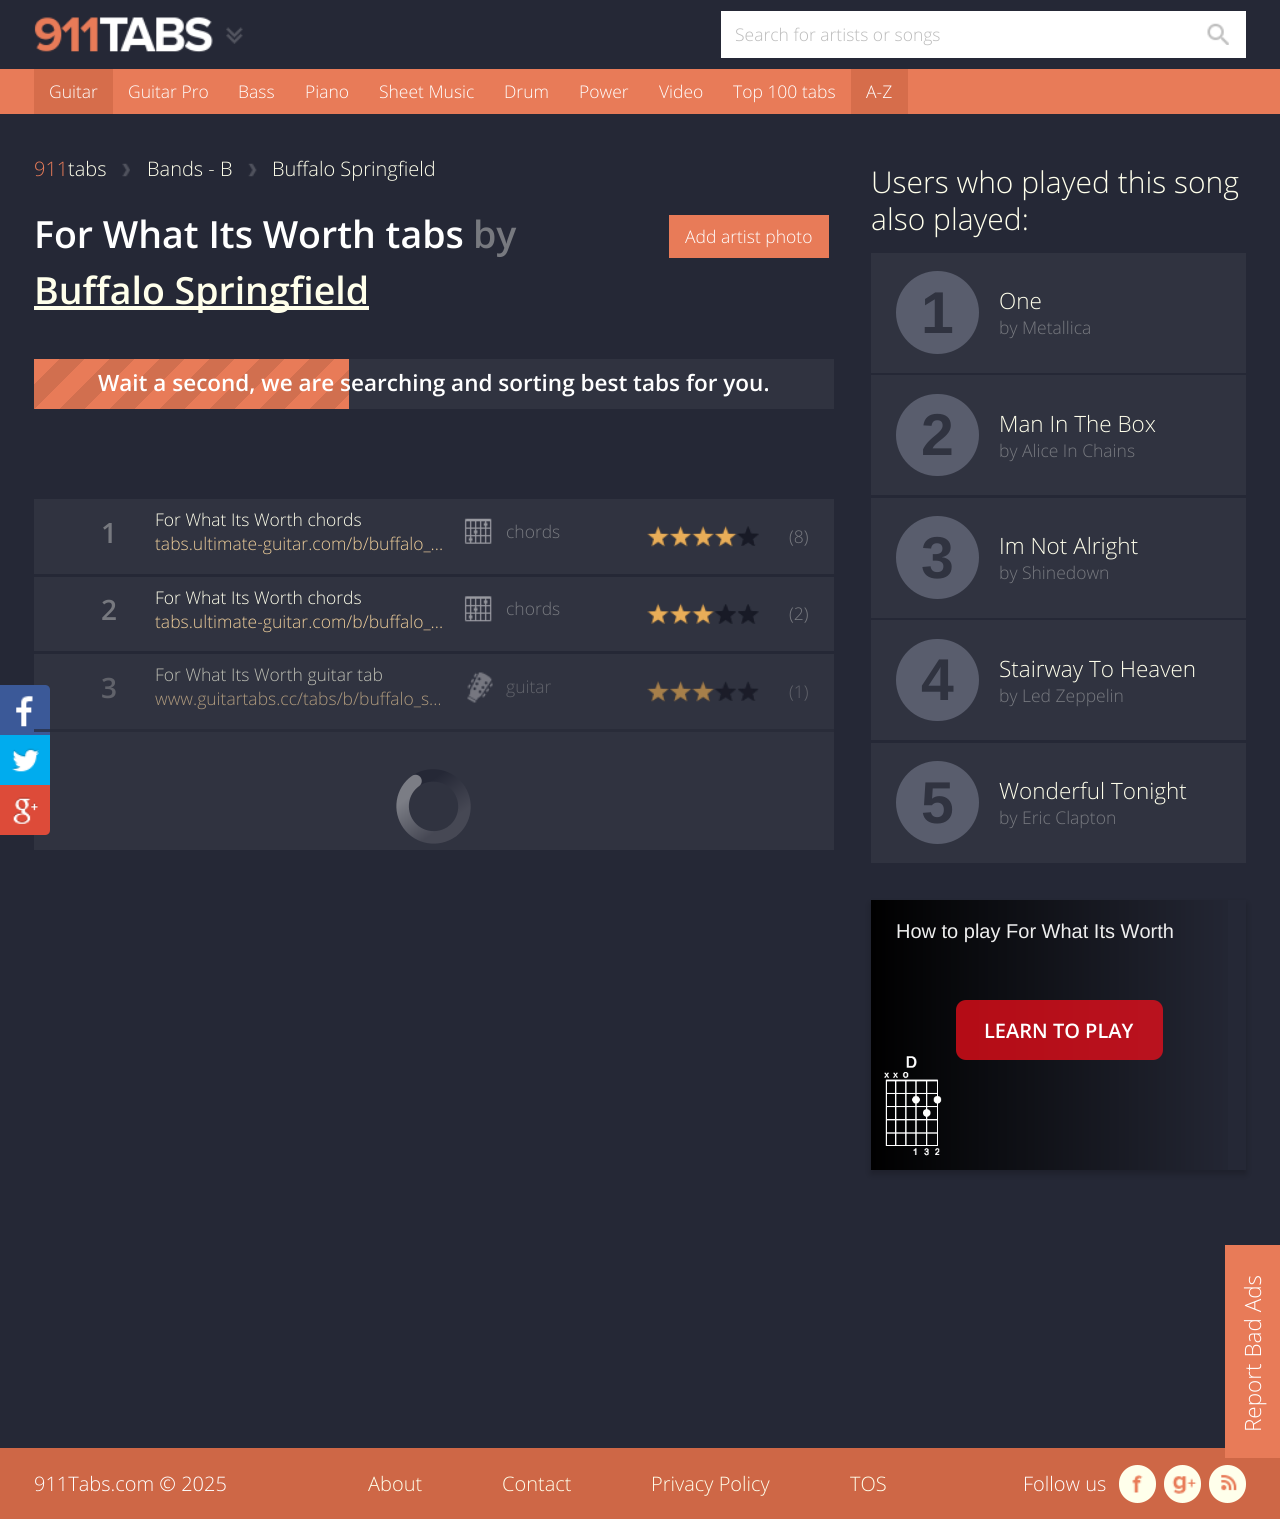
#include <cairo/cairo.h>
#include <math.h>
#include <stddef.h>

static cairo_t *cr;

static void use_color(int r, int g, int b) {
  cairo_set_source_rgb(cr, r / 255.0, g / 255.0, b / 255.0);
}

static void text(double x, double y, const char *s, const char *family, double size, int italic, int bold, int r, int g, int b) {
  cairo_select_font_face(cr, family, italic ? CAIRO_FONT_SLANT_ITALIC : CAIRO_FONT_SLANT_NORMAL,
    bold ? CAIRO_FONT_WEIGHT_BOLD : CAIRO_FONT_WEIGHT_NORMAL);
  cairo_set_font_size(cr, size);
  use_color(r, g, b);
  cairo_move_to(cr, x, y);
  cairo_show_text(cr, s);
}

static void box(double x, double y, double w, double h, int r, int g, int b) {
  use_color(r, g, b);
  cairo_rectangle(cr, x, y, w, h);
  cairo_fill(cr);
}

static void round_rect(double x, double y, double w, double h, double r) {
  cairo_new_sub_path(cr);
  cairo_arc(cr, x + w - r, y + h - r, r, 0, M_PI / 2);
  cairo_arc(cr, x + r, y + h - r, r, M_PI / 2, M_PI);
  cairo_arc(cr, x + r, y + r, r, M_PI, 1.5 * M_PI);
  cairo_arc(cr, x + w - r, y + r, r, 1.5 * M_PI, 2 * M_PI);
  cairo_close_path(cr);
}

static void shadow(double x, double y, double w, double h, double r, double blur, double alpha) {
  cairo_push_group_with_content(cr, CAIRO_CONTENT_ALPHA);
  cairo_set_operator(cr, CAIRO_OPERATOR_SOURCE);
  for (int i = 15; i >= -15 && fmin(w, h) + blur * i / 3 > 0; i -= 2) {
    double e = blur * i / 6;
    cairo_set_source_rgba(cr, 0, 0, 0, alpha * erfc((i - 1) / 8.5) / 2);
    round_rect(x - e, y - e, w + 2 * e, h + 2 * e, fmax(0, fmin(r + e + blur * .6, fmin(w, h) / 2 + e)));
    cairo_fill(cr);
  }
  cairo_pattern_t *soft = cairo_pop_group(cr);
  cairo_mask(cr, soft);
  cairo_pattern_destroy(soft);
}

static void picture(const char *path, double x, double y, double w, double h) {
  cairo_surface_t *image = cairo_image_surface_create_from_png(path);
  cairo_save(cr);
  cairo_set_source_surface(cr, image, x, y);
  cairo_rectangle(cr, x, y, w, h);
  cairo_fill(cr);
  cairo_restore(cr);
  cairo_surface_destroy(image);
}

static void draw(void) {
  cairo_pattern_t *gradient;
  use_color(37, 40, 54);
  cairo_paint(cr);
  picture("img_01.png", 34, 16, 179, 37);
  picture("img_02.png", 226, 27, 17, 17);
  box(721, 11, 525, 47, 255, 255, 255);
  picture("img_03.png", 1207, 23, 22, 22);
  box(0, 69, 1280, 45, 232, 123, 88);
  box(34, 69, 79, 45, 214, 109, 75);
  box(851, 69, 57, 45, 214, 109, 75);
  box(34, 499, 800, 351, 48, 51, 64);
  use_color(59, 89, 152);
  cairo_new_path(cr);
  cairo_move_to(cr, 0, 685);
  cairo_line_to(cr, 45, 685);
  cairo_curve_to(cr, 48, 685, 50, 687, 50, 690);
  cairo_line_to(cr, 50, 735);
  cairo_line_to(cr, 0, 735);
  cairo_close_path(cr);
  cairo_fill(cr);
  box(34, 729, 16, 3, 44, 56, 86);
  picture("img_04.png", 16, 695, 17, 32);
  box(0, 735, 50, 50, 0, 172, 238);
  picture("img_05.png", 12, 748, 27, 24);
  use_color(221, 75, 57);
  cairo_new_path(cr);
  cairo_move_to(cr, 0, 785);
  cairo_line_to(cr, 50, 785);
  cairo_line_to(cr, 50, 830);
  cairo_curve_to(cr, 50, 833, 48, 835, 45, 835);
  cairo_line_to(cr, 0, 835);
  cairo_close_path(cr);
  cairo_fill(cr);
  picture("img_06.png", 13, 797, 25, 27);
  picture("img_07.png", 122, 163, 8, 14);
  picture("img_08.png", 248, 163, 9, 14);
  box(34, 306, 335, 4, 255, 255, 235);
  box(669, 215, 160, 43, 232, 123, 88);
  box(349, 359, 485, 50, 48, 51, 64);
  gradient = cairo_pattern_create_linear(84, 409, 34, 359);
  cairo_pattern_add_color_stop_rgba(gradient, 0.25, 0.82, 0.435, 0.31, 1);
  cairo_pattern_add_color_stop_rgba(gradient, 0.25, 0.91, 0.482, 0.345, 1);
  cairo_pattern_add_color_stop_rgba(gradient, 0.5, 0.91, 0.482, 0.345, 1);
  cairo_pattern_add_color_stop_rgba(gradient, 0.5, 0.82, 0.435, 0.31, 1);
  cairo_pattern_add_color_stop_rgba(gradient, 0.75, 0.82, 0.435, 0.31, 1);
  cairo_pattern_add_color_stop_rgba(gradient, 0.75, 0.91, 0.482, 0.345, 1);
  cairo_pattern_add_color_stop_rgba(gradient, 1, 0.91, 0.482, 0.345, 1);
  cairo_set_source(cr, gradient);
  cairo_pattern_destroy(gradient);
  cairo_rectangle(cr, 34, 359, 50, 50);
  cairo_fill(cr);
  gradient = cairo_pattern_create_linear(134, 409, 84, 359);
  cairo_pattern_add_color_stop_rgba(gradient, 0.25, 0.82, 0.435, 0.31, 1);
  cairo_pattern_add_color_stop_rgba(gradient, 0.25, 0.91, 0.482, 0.345, 1);
  cairo_pattern_add_color_stop_rgba(gradient, 0.5, 0.91, 0.482, 0.345, 1);
  cairo_pattern_add_color_stop_rgba(gradient, 0.5, 0.82, 0.435, 0.31, 1);
  cairo_pattern_add_color_stop_rgba(gradient, 0.75, 0.82, 0.435, 0.31, 1);
  cairo_pattern_add_color_stop_rgba(gradient, 0.75, 0.91, 0.482, 0.345, 1);
  cairo_pattern_add_color_stop_rgba(gradient, 1, 0.91, 0.482, 0.345, 1);
  cairo_set_source(cr, gradient);
  cairo_pattern_destroy(gradient);
  cairo_rectangle(cr, 84, 359, 50, 50);
  cairo_fill(cr);
  gradient = cairo_pattern_create_linear(184, 409, 134, 359);
  cairo_pattern_add_color_stop_rgba(gradient, 0.25, 0.82, 0.435, 0.31, 1);
  cairo_pattern_add_color_stop_rgba(gradient, 0.25, 0.91, 0.482, 0.345, 1);
  cairo_pattern_add_color_stop_rgba(gradient, 0.5, 0.91, 0.482, 0.345, 1);
  cairo_pattern_add_color_stop_rgba(gradient, 0.5, 0.82, 0.435, 0.31, 1);
  cairo_pattern_add_color_stop_rgba(gradient, 0.75, 0.82, 0.435, 0.31, 1);
  cairo_pattern_add_color_stop_rgba(gradient, 0.75, 0.91, 0.482, 0.345, 1);
  cairo_pattern_add_color_stop_rgba(gradient, 1, 0.91, 0.482, 0.345, 1);
  cairo_set_source(cr, gradient);
  cairo_pattern_destroy(gradient);
  cairo_rectangle(cr, 134, 359, 50, 50);
  cairo_fill(cr);
  gradient = cairo_pattern_create_linear(234, 409, 184, 359);
  cairo_pattern_add_color_stop_rgba(gradient, 0.25, 0.82, 0.435, 0.31, 1);
  cairo_pattern_add_color_stop_rgba(gradient, 0.25, 0.91, 0.482, 0.345, 1);
  cairo_pattern_add_color_stop_rgba(gradient, 0.5, 0.91, 0.482, 0.345, 1);
  cairo_pattern_add_color_stop_rgba(gradient, 0.5, 0.82, 0.435, 0.31, 1);
  cairo_pattern_add_color_stop_rgba(gradient, 0.75, 0.82, 0.435, 0.31, 1);
  cairo_pattern_add_color_stop_rgba(gradient, 0.75, 0.91, 0.482, 0.345, 1);
  cairo_pattern_add_color_stop_rgba(gradient, 1, 0.91, 0.482, 0.345, 1);
  cairo_set_source(cr, gradient);
  cairo_pattern_destroy(gradient);
  cairo_rectangle(cr, 184, 359, 50, 50);
  cairo_fill(cr);
  gradient = cairo_pattern_create_linear(284, 409, 234, 359);
  cairo_pattern_add_color_stop_rgba(gradient, 0.25, 0.82, 0.435, 0.31, 1);
  cairo_pattern_add_color_stop_rgba(gradient, 0.25, 0.91, 0.482, 0.345, 1);
  cairo_pattern_add_color_stop_rgba(gradient, 0.5, 0.91, 0.482, 0.345, 1);
  cairo_pattern_add_color_stop_rgba(gradient, 0.5, 0.82, 0.435, 0.31, 1);
  cairo_pattern_add_color_stop_rgba(gradient, 0.75, 0.82, 0.435, 0.31, 1);
  cairo_pattern_add_color_stop_rgba(gradient, 0.75, 0.91, 0.482, 0.345, 1);
  cairo_pattern_add_color_stop_rgba(gradient, 1, 0.91, 0.482, 0.345, 1);
  cairo_set_source(cr, gradient);
  cairo_pattern_destroy(gradient);
  cairo_rectangle(cr, 234, 359, 50, 50);
  cairo_fill(cr);
  gradient = cairo_pattern_create_linear(334, 409, 284, 359);
  cairo_pattern_add_color_stop_rgba(gradient, 0.25, 0.82, 0.435, 0.31, 1);
  cairo_pattern_add_color_stop_rgba(gradient, 0.25, 0.91, 0.482, 0.345, 1);
  cairo_pattern_add_color_stop_rgba(gradient, 0.5, 0.91, 0.482, 0.345, 1);
  cairo_pattern_add_color_stop_rgba(gradient, 0.5, 0.82, 0.435, 0.31, 1);
  cairo_pattern_add_color_stop_rgba(gradient, 0.75, 0.82, 0.435, 0.31, 1);
  cairo_pattern_add_color_stop_rgba(gradient, 0.75, 0.91, 0.482, 0.345, 1);
  cairo_pattern_add_color_stop_rgba(gradient, 1, 0.91, 0.482, 0.345, 1);
  cairo_set_source(cr, gradient);
  cairo_pattern_destroy(gradient);
  cairo_rectangle(cr, 284, 359, 50, 50);
  cairo_fill(cr);
  gradient = cairo_pattern_create_linear(384, 409, 334, 359);
  cairo_pattern_add_color_stop_rgba(gradient, 0.25, 0.82, 0.435, 0.31, 1);
  cairo_pattern_add_color_stop_rgba(gradient, 0.25, 0.91, 0.482, 0.345, 1);
  cairo_pattern_add_color_stop_rgba(gradient, 0.5, 0.91, 0.482, 0.345, 1);
  cairo_pattern_add_color_stop_rgba(gradient, 0.5, 0.82, 0.435, 0.31, 1);
  cairo_pattern_add_color_stop_rgba(gradient, 0.75, 0.82, 0.435, 0.31, 1);
  cairo_pattern_add_color_stop_rgba(gradient, 0.75, 0.91, 0.482, 0.345, 1);
  cairo_pattern_add_color_stop_rgba(gradient, 1, 0.91, 0.482, 0.345, 1);
  cairo_set_source(cr, gradient);
  cairo_pattern_destroy(gradient);
  cairo_rectangle(cr, 334, 359, 15, 50);
  cairo_fill(cr);
  box(50, 729, 784, 3, 41, 44, 57);
  box(34, 574, 800, 3, 37, 40, 54);
  picture("img_09.png", 464, 518, 28, 26);
  picture("img_10.png", 647, 526, 22, 20);
  picture("img_11.png", 647, 526, 22, 21);
  picture("img_12.png", 670, 526, 21, 20);
  picture("img_13.png", 670, 526, 22, 21);
  picture("img_10.png", 692, 526, 22, 20);
  picture("img_11.png", 692, 526, 22, 21);
  picture("img_12.png", 715, 526, 21, 20);
  picture("img_13.png", 715, 526, 22, 21);
  picture("img_10.png", 737, 526, 22, 20);
  picture("img_14.png", 737, 526, 22, 20);
  box(34, 651, 800, 3, 37, 40, 54);
  picture("img_15.png", 464, 596, 28, 26);
  picture("img_16.png", 648, 604, 21, 20);
  picture("img_17.png", 647, 603, 22, 21);
  picture("img_18.png", 670, 604, 21, 20);
  picture("img_19.png", 670, 603, 22, 21);
  picture("img_16.png", 693, 604, 21, 20);
  picture("img_17.png", 692, 603, 22, 21);
  picture("img_18.png", 715, 604, 21, 20);
  picture("img_20.png", 715, 604, 21, 20);
  picture("img_16.png", 738, 604, 21, 20);
  picture("img_21.png", 738, 604, 21, 20);
  picture("img_22.png", 467, 672, 26, 31);
  picture("img_23.png", 648, 681, 21, 20);
  picture("img_24.png", 647, 681, 22, 21);
  picture("img_25.png", 670, 681, 21, 20);
  picture("img_26.png", 670, 681, 22, 21);
  picture("img_23.png", 693, 681, 21, 20);
  picture("img_27.png", 692, 681, 22, 21);
  picture("img_25.png", 715, 681, 21, 20);
  picture("img_28.png", 715, 682, 21, 19);
  picture("img_29.png", 738, 681, 21, 20);
  picture("img_30.png", 738, 682, 20, 19);
  cairo_new_path(cr);
  cairo_move_to(cr, 452, 831.5);
  cairo_curve_to(cr, 466, 821, 468.5, 801.5, 458, 787.5);
  cairo_curve_to(cr, 447.5, 774, 428, 771.5, 414.5, 781.5);
  gradient = cairo_pattern_create_linear(464, 823, 427, 772);
  cairo_pattern_add_color_stop_rgba(gradient, 0.15, 0.275, 0.282, 0.329, 1);
  cairo_pattern_add_color_stop_rgba(gradient, 0.85, 0.145, 0.157, 0.212, 1);
  cairo_set_source(cr, gradient);
  cairo_pattern_destroy(gradient);
  cairo_set_line_width(cr, 12.5);
  cairo_stroke(cr);
  cairo_new_path(cr);
  cairo_move_to(cr, 452, 831.5);
  cairo_curve_to(cr, 438, 841.5, 418.5, 838.5, 408.5, 824.5);
  cairo_curve_to(cr, 398.5, 810.5, 401.5, 791, 415.5, 781);
  gradient = cairo_pattern_create_linear(403, 790, 439, 841);
  cairo_pattern_add_color_stop_rgba(gradient, 0.15, 0.482, 0.49, 0.522, 1);
  cairo_pattern_add_color_stop_rgba(gradient, 0.85, 0.275, 0.282, 0.329, 1);
  cairo_set_source(cr, gradient);
  cairo_pattern_destroy(gradient);
  cairo_set_line_cap(cr, CAIRO_LINE_CAP_ROUND);
  cairo_stroke(cr);
  box(871, 253, 375, 120, 48, 51, 64);
  use_color(89, 93, 109);
  cairo_arc(cr, 937.5, 312.5, 41.5, 0, 2 * M_PI);
  cairo_fill(cr);
  box(871, 375, 375, 120, 48, 51, 64);
  use_color(89, 93, 109);
  round_rect(896, 394, 83, 82, 41);
  cairo_fill(cr);
  box(871, 498, 375, 120, 48, 51, 64);
  use_color(89, 93, 109);
  cairo_arc(cr, 937.5, 557.5, 41.5, 0, 2 * M_PI);
  cairo_fill(cr);
  box(871, 620, 375, 120, 48, 51, 64);
  use_color(89, 93, 109);
  round_rect(896, 639, 83, 82, 41);
  cairo_fill(cr);
  box(871, 743, 375, 120, 48, 51, 64);
  use_color(89, 93, 109);
  cairo_arc(cr, 937.5, 802.5, 41.5, 0, 2 * M_PI);
  cairo_fill(cr);
  cairo_save(cr);
  cairo_set_fill_rule(cr, CAIRO_FILL_RULE_EVEN_ODD);
  cairo_new_path(cr);
  cairo_move_to(cr, 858, 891);
  cairo_line_to(cr, 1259, 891);
  cairo_line_to(cr, 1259, 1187);
  cairo_line_to(cr, 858, 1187);
  cairo_close_path(cr);
  cairo_move_to(cr, 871, 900);
  cairo_line_to(cr, 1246, 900);
  cairo_line_to(cr, 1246, 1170);
  cairo_line_to(cr, 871, 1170);
  cairo_close_path(cr);
  cairo_clip(cr);
  use_color(0, 0, 0);
  shadow(871, 904, 375, 270, 0, 4, 0.23);
  cairo_restore(cr);
  gradient = cairo_pattern_create_linear(871, 1035, 1246, 1035);
  cairo_pattern_add_color_stop_rgba(gradient, 0, 0, 0, 0, 1);
  cairo_pattern_add_color_stop_rgba(gradient, 1, 0, 0, 0, 0);
  cairo_set_source(cr, gradient);
  cairo_pattern_destroy(gradient);
  cairo_rectangle(cr, 871, 900, 357, 270);
  cairo_fill(cr);
  cairo_set_source_rgba(cr, 0.988, 0.051, 0.106, 0.7);
  round_rect(956, 1000, 207, 60, 10);
  cairo_fill(cr);
  picture("img_31.png", 884, 1056, 58, 100);
  box(0, 1448, 1280, 71, 206, 103, 70);
  use_color(255, 255, 235);
  round_rect(1119, 1465, 37, 38, 18.5);
  cairo_fill(cr);
  picture("img_32.png", 1132, 1474, 11, 19);
  round_rect(1164, 1465, 37, 38, 18.5);
  cairo_fill(cr);
  picture("img_33.png", 1172, 1476, 25, 18);
  round_rect(1209, 1465, 37, 38, 18.5);
  cairo_fill(cr);
  picture("img_34.png", 1221, 1474, 16, 17);
  box(1225, 1245, 55, 213, 232, 123, 88);
  text(735, 41, "Search for artists or songs", "Open Sans Light", 17.5, 0, 0, 187, 187, 187);
  text(49, 98, "Guitar", "Open Sans Light", 17.5, 0, 0, 255, 255, 255);
  text(128, 98, "Guitar Pro", "Open Sans Light", 17.5, 0, 0, 255, 255, 255);
  text(238, 98, "Bass", "Open Sans Light", 17.5, 0, 0, 255, 255, 255);
  text(305, 98, "Piano", "Open Sans Light", 17.5, 0, 0, 255, 255, 255);
  text(379, 98, "Sheet Music", "Open Sans Light", 17.5, 0, 0, 255, 255, 255);
  text(504, 98, "Drum", "Open Sans Light", 17.5, 0, 0, 255, 255, 255);
  text(579, 98, "Power", "Open Sans Light", 17.5, 0, 0, 255, 255, 255);
  text(659, 98, "Video", "Open Sans Light", 17.5, 0, 0, 255, 255, 255);
  text(733, 98, "Top 100 tabs", "Open Sans Light", 17.5, 0, 0, 255, 255, 255);
  text(866, 98, "A-Z", "Open Sans Light", 17.5, 0, 0, 255, 255, 255);
  text(34, 176, "911", "Open Sans Light", 20, 0, 0, 232, 123, 88);
  text(68, 176, "tabs", "Open Sans Light", 20, 0, 0, 255, 255, 235);
  text(147, 176, "Bands - B", "Open Sans Light", 20, 0, 0, 255, 255, 235);
  text(272, 176, "Buffalo Springfield", "Open Sans Light", 20, 0, 0, 255, 255, 235);
  text(34, 248, "For What Its Worth tabs", "Open Sans SemiBold", 37.5, 0, 0, 255, 255, 255);
  text(473, 248, "by", "Open Sans SemiBold", 37.5, 0, 0, 119, 121, 127);
  text(34, 304, "Buffalo Springfield", "Open Sans SemiBold", 37.5, 0, 0, 255, 255, 235);
  text(685, 243, "Add artist photo", "Open Sans Light", 17.5, 0, 0, 255, 255, 255);
  text(98, 391, "Wait a second, we are searching and sorting best tabs for you.", "Open Sans SemiBold", 22.5, 0, 0, 255, 255, 255);
  text(101, 543, "1", "Open Sans SemiBold", 28, 0, 0, 119, 121, 127);
  text(155, 526, "For What Its Worth chords", "Open Sans Light", 17.5, 0, 0, 255, 255, 235);
  text(155, 550, "tabs.ultimate-guitar.com/b/buffalo_...", "Open Sans Light", 17.5, 0, 0, 236, 204, 153);
  text(506, 538, "chords", "Open Sans Light", 17.5, 0, 0, 119, 121, 127);
  text(789, 543, "(8)", "Open Sans Light", 17.5, 0, 0, 119, 121, 127);
  text(101, 620, "2", "Open Sans SemiBold", 28, 0, 0, 119, 121, 127);
  text(155, 604, "For What Its Worth chords", "Open Sans Light", 17.5, 0, 0, 255, 255, 235);
  text(155, 628, "tabs.ultimate-guitar.com/b/buffalo_...", "Open Sans Light", 17.5, 0, 0, 236, 204, 153);
  text(506, 615, "chords", "Open Sans Light", 17.5, 0, 0, 119, 121, 127);
  text(789, 620, "(2)", "Open Sans Light", 17.5, 0, 0, 119, 121, 127);
  text(101, 698, "3", "Open Sans SemiBold", 28, 0, 0, 96, 98, 106);
  text(155, 681, "For What Its Worth guitar tab", "Open Sans Light", 17.5, 0, 0, 187, 188, 178);
  text(155, 705, "www.guitartabs.cc/tabs/b/buffalo_s...", "Open Sans Light", 17.5, 0, 0, 174, 153, 124);
  text(506, 693, "guitar", "Open Sans Light", 17.5, 0, 0, 96, 98, 106);
  text(789, 698, "(1)", "Open Sans Light", 17.5, 0, 0, 96, 98, 106);
  text(871, 193, "Users who played this song", "Open Sans Light", 30, 0, 0, 255, 255, 235);
  text(871, 230, "also played:", "Open Sans Light", 30, 0, 0, 255, 255, 235);
  text(921, 333, "1", "Liberation Sans", 59, 0, 1, 48, 51, 64);
  text(999, 309, "One", "Open Sans Light", 22.5, 0, 0, 255, 255, 235);
  text(999, 334, "by Metallica", "Open Sans Light", 17.5, 0, 0, 119, 121, 127);
  text(921, 455, "2", "Liberation Sans", 59, 0, 1, 48, 51, 64);
  text(999, 432, "Man In The Box", "Open Sans Light", 22.5, 0, 0, 255, 255, 235);
  text(999, 457, "by Alice In Chains", "Open Sans Light", 17.5, 0, 0, 119, 121, 127);
  text(921, 578, "3", "Liberation Sans", 59, 0, 1, 48, 51, 64);
  text(999, 554, "Im Not Alright", "Open Sans Light", 22.5, 0, 0, 255, 255, 235);
  text(999, 579, "by Shinedown", "Open Sans Light", 17.5, 0, 0, 119, 121, 127);
  text(921, 700, "4", "Liberation Sans", 59, 0, 1, 48, 51, 64);
  text(999, 677, "Stairway To Heaven", "Open Sans Light", 22.5, 0, 0, 255, 255, 235);
  text(999, 702, "by Led Zeppelin", "Open Sans Light", 17.5, 0, 0, 119, 121, 127);
  text(921, 823, "5", "Liberation Sans", 59, 0, 1, 48, 51, 64);
  text(999, 799, "Wonderful Tonight", "Open Sans Light", 22.5, 0, 0, 255, 255, 235);
  text(999, 824, "by Eric Clapton", "Open Sans Light", 17.5, 0, 0, 119, 121, 127);
  text(896, 938, "How to play For What Its Worth", "Liberation Sans", 20, 0, 0, 238, 238, 238);
  text(984, 1038, "LEARN TO PLAY", "Open Sans SemiBold", 20, 0, 0, 255, 255, 255);
  text(34, 1491, "911Tabs.com © 2025", "Open Sans Light", 20, 0, 0, 255, 255, 255);
  text(368, 1491, "About", "Open Sans Light", 20, 0, 0, 255, 255, 235);
  text(502, 1491, "Contact", "Open Sans Light", 20, 0, 0, 255, 255, 235);
  text(651, 1491, "Privacy Policy", "Open Sans Light", 20, 0, 0, 255, 255, 235);
  text(850, 1491, "TOS", "Open Sans Light", 20, 0, 0, 255, 255, 235);
  text(1023, 1491, "Follow us", "Open Sans Light", 20, 0, 0, 255, 255, 255);
  cairo_save(cr);
  cairo_translate(cr, 1261, 1432);
  cairo_rotate(cr, -90 * M_PI / 180);
  text(0, 0, "Report Bad Ads", "Open Sans Light", 22.5, 0, 0, 255, 255, 255);
  cairo_restore(cr);
}

int main(void) {
  cairo_surface_t *surface = cairo_image_surface_create(CAIRO_FORMAT_RGB24, 1280, 1519);
  cr = cairo_create(surface);
  cairo_font_options_t *options = cairo_font_options_create();
  cairo_font_options_set_hint_metrics(options, CAIRO_HINT_METRICS_OFF);
  cairo_font_options_set_hint_style(options, CAIRO_HINT_STYLE_NONE);
  cairo_set_font_options(cr, options);
  cairo_set_miter_limit(cr, 4);
  draw();
  cairo_surface_write_to_png(surface, "out.png");
  cairo_font_options_destroy(options);
  cairo_destroy(cr);
  cairo_surface_destroy(surface);
  return 0;
}
